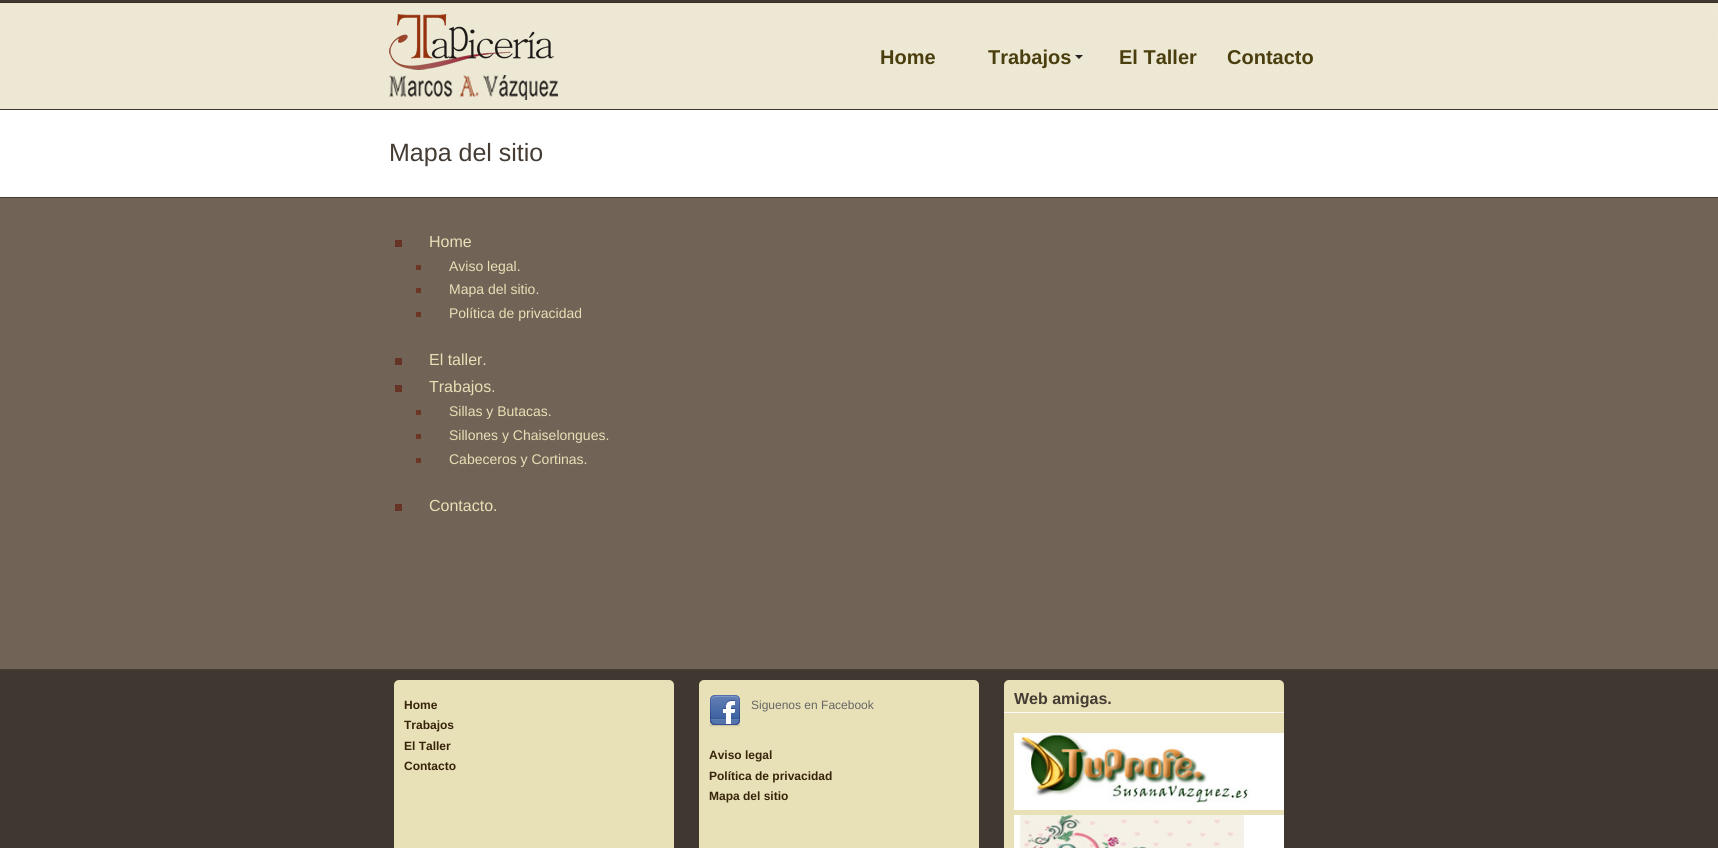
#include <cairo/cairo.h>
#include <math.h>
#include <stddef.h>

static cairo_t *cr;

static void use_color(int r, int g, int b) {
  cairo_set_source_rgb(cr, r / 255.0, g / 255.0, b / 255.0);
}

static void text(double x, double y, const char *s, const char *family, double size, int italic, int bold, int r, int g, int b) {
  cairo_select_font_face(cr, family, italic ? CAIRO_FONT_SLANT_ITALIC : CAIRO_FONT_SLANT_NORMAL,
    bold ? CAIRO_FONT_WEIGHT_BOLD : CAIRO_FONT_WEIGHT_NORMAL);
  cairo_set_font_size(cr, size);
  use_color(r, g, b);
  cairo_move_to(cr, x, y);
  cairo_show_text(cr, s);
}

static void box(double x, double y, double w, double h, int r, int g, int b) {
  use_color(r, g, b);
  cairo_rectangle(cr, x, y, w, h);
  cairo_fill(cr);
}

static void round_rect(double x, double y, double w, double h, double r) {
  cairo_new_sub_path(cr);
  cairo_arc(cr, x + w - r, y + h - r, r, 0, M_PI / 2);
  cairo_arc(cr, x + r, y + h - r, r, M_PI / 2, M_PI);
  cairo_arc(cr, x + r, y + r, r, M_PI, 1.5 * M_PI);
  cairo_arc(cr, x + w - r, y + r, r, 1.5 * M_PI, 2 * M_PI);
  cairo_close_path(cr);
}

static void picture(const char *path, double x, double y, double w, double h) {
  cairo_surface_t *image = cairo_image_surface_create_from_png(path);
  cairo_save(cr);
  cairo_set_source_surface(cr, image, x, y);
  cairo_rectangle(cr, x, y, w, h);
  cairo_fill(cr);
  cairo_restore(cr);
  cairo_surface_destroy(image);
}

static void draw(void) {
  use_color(255, 255, 255);
  cairo_paint(cr);
  box(0, 0, 1718, 110, 63, 56, 46);
  picture("img_01.png", 0, 1, 1718, 108);
  picture("img_02.png", 389, 14, 169, 86);
  picture("img_03.png", 1075, 55, 8, 4);
  box(0, 198, 1718, 471, 113, 100, 87);
  box(0, 197, 1718, 1, 69, 60, 52);
  picture("img_04.png", 395, 240, 7, 7);
  box(416, 265, 5, 5, 108, 54, 36);
  box(416, 288, 5, 5, 108, 54, 36);
  box(416, 312, 5, 5, 108, 54, 36);
  picture("img_04.png", 395, 358, 7, 7);
  picture("img_04.png", 395, 385, 7, 7);
  box(416, 410, 5, 5, 108, 54, 36);
  box(416, 434, 5, 5, 108, 54, 36);
  box(416, 458, 5, 5, 108, 54, 36);
  picture("img_04.png", 395, 504, 7, 7);
  box(0, 670, 1718, 178, 64, 56, 48);
  box(0, 669, 1718, 1, 69, 60, 52);
  use_color(232, 224, 182);
  round_rect(394, 680, 280, 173, 5);
  cairo_fill(cr);
  round_rect(699, 680, 280, 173, 5);
  cairo_fill(cr);
  picture("img_05.png", 709, 695, 32, 32);
  round_rect(1004, 680, 280, 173, 5);
  cairo_fill(cr);
  box(1004, 712, 280, 1, 251, 249, 249);
  box(1014, 733, 270, 77, 255, 255, 255);
  picture("img_06.png", 1019, 733, 232, 70);
  box(1014, 815, 270, 33, 255, 255, 255);
  picture("img_07.png", 1019, 815, 225, 33);
  text(880, 64, "Home", "Liberation Sans", 20, 0, 1, 74, 62, 14);
  text(988, 64, "Trabajos", "Liberation Sans", 20, 0, 1, 74, 62, 14);
  text(1119, 64, "El Taller", "Liberation Sans", 20, 0, 1, 74, 62, 14);
  text(1227, 64, "Contacto", "Liberation Sans", 20, 0, 1, 74, 62, 14);
  text(389, 161, "Mapa del sitio", "Liberation Sans", 25, 0, 0, 69, 60, 52);
  text(429, 247, "Home", "Liberation Sans", 16, 0, 0, 232, 224, 182);
  text(449, 271, "Aviso legal.", "Liberation Sans", 14, 0, 0, 232, 224, 182);
  text(449, 294, "Mapa del sitio.", "Liberation Sans", 14, 0, 0, 232, 224, 182);
  text(449, 318, "Política de privacidad", "Liberation Sans", 14, 0, 0, 232, 224, 182);
  text(429, 365, "El taller.", "Liberation Sans", 16, 0, 0, 232, 224, 182);
  text(429, 392, "Trabajos.", "Liberation Sans", 16, 0, 0, 232, 224, 182);
  text(449, 416, "Sillas y Butacas.", "Liberation Sans", 14, 0, 0, 232, 224, 182);
  text(449, 440, "Sillones y Chaiselongues.", "Liberation Sans", 14, 0, 0, 232, 224, 182);
  text(449, 464, "Cabeceros y Cortinas.", "Liberation Sans", 14, 0, 0, 232, 224, 182);
  text(429, 511, "Contacto.", "Liberation Sans", 16, 0, 0, 232, 224, 182);
  text(404, 709, "Home", "Liberation Sans", 12, 0, 1, 54, 36, 10);
  text(404, 729, "Trabajos", "Liberation Sans", 12, 0, 1, 54, 36, 10);
  text(404, 750, "El Taller", "Liberation Sans", 12, 0, 1, 54, 36, 10);
  text(404, 770, "Contacto", "Liberation Sans", 12, 0, 1, 54, 36, 10);
  text(751, 709, "Siguenos en Facebook", "Liberation Sans", 12, 0, 0, 102, 102, 102);
  text(709, 759, "Aviso legal", "Liberation Sans", 12, 0, 1, 54, 36, 10);
  text(709, 780, "Política de privacidad", "Liberation Sans", 12, 0, 1, 54, 36, 10);
  text(709, 800, "Mapa del sitio", "Liberation Sans", 12, 0, 1, 54, 36, 10);
  text(1014, 704, "Web amigas.", "Liberation Sans", 16, 0, 1, 69, 60, 52);
}

int main(void) {
  cairo_surface_t *surface = cairo_image_surface_create(CAIRO_FORMAT_RGB24, 1718, 848);
  cr = cairo_create(surface);
  cairo_font_options_t *options = cairo_font_options_create();
  cairo_font_options_set_hint_metrics(options, CAIRO_HINT_METRICS_OFF);
  cairo_font_options_set_hint_style(options, CAIRO_HINT_STYLE_NONE);
  cairo_set_font_options(cr, options);
  cairo_set_miter_limit(cr, 4);
  draw();
  cairo_surface_write_to_png(surface, "out.png");
  cairo_font_options_destroy(options);
  cairo_destroy(cr);
  cairo_surface_destroy(surface);
  return 0;
}
